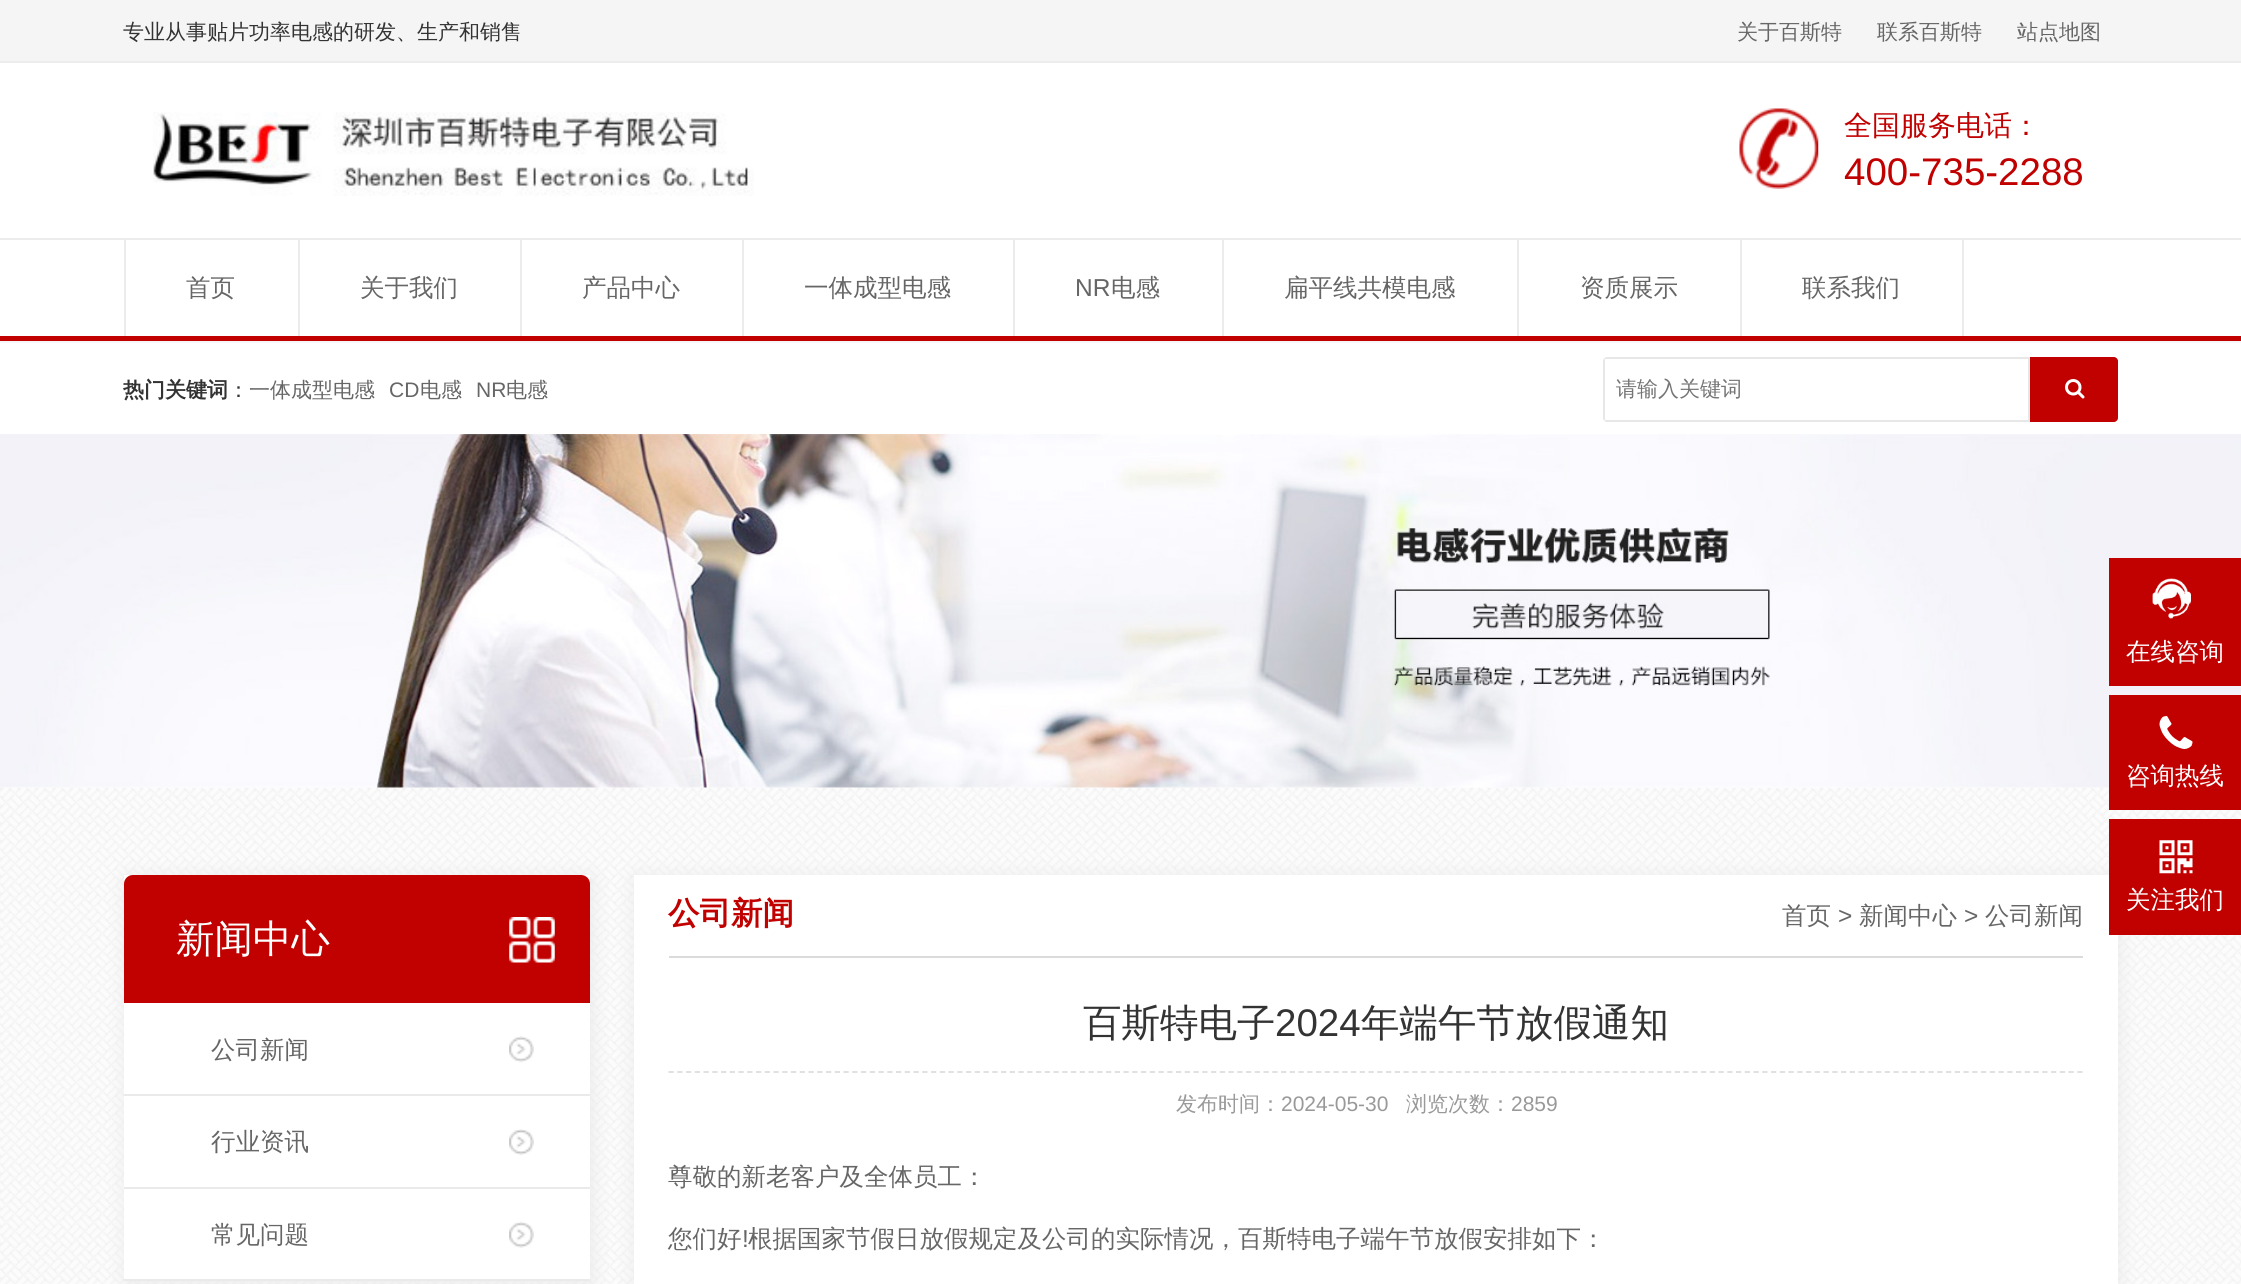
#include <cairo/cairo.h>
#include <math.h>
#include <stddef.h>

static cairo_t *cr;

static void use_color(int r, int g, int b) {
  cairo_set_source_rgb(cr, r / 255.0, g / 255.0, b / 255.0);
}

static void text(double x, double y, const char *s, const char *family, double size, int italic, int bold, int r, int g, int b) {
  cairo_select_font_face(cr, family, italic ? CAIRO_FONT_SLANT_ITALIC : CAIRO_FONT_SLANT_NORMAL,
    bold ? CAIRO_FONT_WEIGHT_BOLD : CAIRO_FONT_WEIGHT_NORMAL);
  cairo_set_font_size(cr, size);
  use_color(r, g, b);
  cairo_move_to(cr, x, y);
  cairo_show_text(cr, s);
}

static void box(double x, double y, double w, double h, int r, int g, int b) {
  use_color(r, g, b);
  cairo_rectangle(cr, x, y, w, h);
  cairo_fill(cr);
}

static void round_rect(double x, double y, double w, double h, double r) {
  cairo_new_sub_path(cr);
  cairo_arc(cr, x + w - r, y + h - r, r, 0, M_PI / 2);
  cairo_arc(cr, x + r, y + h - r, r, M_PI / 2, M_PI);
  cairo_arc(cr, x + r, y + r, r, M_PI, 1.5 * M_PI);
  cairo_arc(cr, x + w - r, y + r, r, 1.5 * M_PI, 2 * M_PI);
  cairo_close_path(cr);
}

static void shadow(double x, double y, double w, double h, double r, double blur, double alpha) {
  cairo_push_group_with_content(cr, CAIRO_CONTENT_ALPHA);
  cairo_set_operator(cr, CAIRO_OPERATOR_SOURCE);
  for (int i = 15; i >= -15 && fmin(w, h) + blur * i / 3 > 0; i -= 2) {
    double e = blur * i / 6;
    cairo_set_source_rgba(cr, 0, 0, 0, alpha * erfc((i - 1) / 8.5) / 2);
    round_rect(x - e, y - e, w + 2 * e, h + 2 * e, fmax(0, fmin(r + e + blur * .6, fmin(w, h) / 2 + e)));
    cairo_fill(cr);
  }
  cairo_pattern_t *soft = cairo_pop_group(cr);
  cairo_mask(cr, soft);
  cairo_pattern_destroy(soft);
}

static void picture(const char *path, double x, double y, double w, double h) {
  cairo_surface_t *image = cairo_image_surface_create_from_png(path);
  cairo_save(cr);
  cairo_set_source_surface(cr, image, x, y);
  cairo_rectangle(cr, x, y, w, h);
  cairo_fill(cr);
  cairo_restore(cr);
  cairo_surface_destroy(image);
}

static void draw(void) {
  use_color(255, 255, 255);
  cairo_paint(cr);
  box(0, 0, 2241, 61, 245, 245, 245);
  box(0, 61, 2241, 2, 236, 236, 236);
  box(0, 238, 2241, 2, 236, 236, 236);
  picture("img_01.png", 153, 112, 601, 84);
  picture("img_02.png", 1739, 108, 80, 81);
  box(0, 336, 2241, 5, 193, 0, 0);
  box(124, 240, 2, 96, 236, 236, 236);
  box(298, 240, 2, 96, 236, 236, 236);
  box(520, 240, 2, 96, 236, 236, 236);
  box(742, 240, 2, 96, 236, 236, 236);
  box(1013, 240, 2, 96, 236, 236, 236);
  box(1222, 240, 2, 96, 236, 236, 236);
  box(1517, 240, 2, 96, 236, 236, 236);
  box(1740, 240, 2, 96, 236, 236, 236);
  box(1962, 240, 2, 96, 236, 236, 236);
  box(0, 341, 2241, 2, 247, 247, 247);
  use_color(231, 231, 231);
  cairo_set_fill_rule(cr, CAIRO_FILL_RULE_EVEN_ODD);
  cairo_new_path(cr);
  cairo_move_to(cr, 1607, 357);
  cairo_curve_to(cr, 1605, 357, 1603, 359, 1603, 361);
  cairo_line_to(cr, 1603, 418);
  cairo_curve_to(cr, 1603, 420, 1605, 422, 1607, 422);
  cairo_line_to(cr, 2030, 422);
  cairo_line_to(cr, 2030, 357);
  cairo_close_path(cr);
  cairo_move_to(cr, 1605, 359);
  cairo_line_to(cr, 1605, 420);
  cairo_line_to(cr, 2028, 420);
  cairo_line_to(cr, 2028, 359);
  cairo_close_path(cr);
  cairo_fill(cr);
  use_color(193, 0, 0);
  cairo_new_path(cr);
  cairo_move_to(cr, 2030, 357);
  cairo_line_to(cr, 2114, 357);
  cairo_curve_to(cr, 2116, 357, 2118, 359, 2118, 361);
  cairo_line_to(cr, 2118, 418);
  cairo_curve_to(cr, 2118, 420, 2116, 422, 2114, 422);
  cairo_line_to(cr, 2030, 422);
  cairo_close_path(cr);
  cairo_fill(cr);
  picture("img_03.png", 2065, 379, 20, 20);
  picture("img_08.png", 0, 787, 2241, 497);
  picture("img_04.png", 0, 434, 2241, 354);
  box(2109, 558, 132, 128, 193, 0, 0);
  picture("img_05.png", 2152, 578, 39, 41);
  box(2109, 695, 132, 115, 193, 0, 0);
  picture("img_06.png", 2159, 716, 34, 33);
  use_color(232, 232, 232);
  shadow(635, 877, 1484, 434, 0, 9, 1);
  box(634, 875, 1484, 409, 255, 255, 255);
  box(2109, 819, 132, 116, 193, 0, 0);
  picture("img_07.png", 2159, 840, 34, 34);
  use_color(232, 232, 232);
  shadow(126, 877, 466, 406, 0, 9, 1);
  box(124, 875, 466, 404, 255, 255, 255);
  use_color(193, 0, 0);
  cairo_new_path(cr);
  cairo_move_to(cr, 133, 875);
  cairo_line_to(cr, 581, 875);
  cairo_curve_to(cr, 586, 875, 590, 879, 590, 884);
  cairo_line_to(cr, 590, 1003);
  cairo_line_to(cr, 124, 1003);
  cairo_line_to(cr, 124, 884);
  cairo_curve_to(cr, 124, 879, 128, 875, 133, 875);
  cairo_close_path(cr);
  cairo_fill(cr);
  picture("img_09.png", 509, 917, 46, 46);
  picture("img_10.png", 509, 1036, 25, 27);
  box(124, 1094, 466, 2, 234, 234, 234);
  picture("img_11.png", 509, 1129, 25, 26);
  box(124, 1187, 466, 2, 234, 234, 234);
  picture("img_12.png", 509, 1221, 25, 27);
  box(124, 1279, 466, 2, 234, 234, 234);
  box(669, 956, 1414, 2, 219, 219, 219);
  cairo_new_path(cr);
  cairo_move_to(cr, 668.5, 1072);
  cairo_line_to(cr, 2082.5, 1072);
  use_color(222, 222, 222);
  cairo_set_line_width(cr, 1.8);
  cairo_set_dash(cr, (double[]){5.25, 3.5}, 2, 0);
  cairo_stroke(cr);
  text(123, 39, "专业从事贴片功率电感的研发、生产和销售", "WenQuanYi Zen Hei Medium", 21, 0, 0, 51, 51, 51);
  text(1737, 39, "关于百斯特", "WenQuanYi Zen Hei Medium", 21, 0, 0, 102, 102, 102);
  text(1877, 39, "联系百斯特", "WenQuanYi Zen Hei Medium", 21, 0, 0, 102, 102, 102);
  text(2017, 39, "站点地图", "WenQuanYi Zen Hei Medium", 21, 0, 0, 102, 102, 102);
  text(1844, 135, "全国服务电话：", "WenQuanYi Zen Hei Medium", 28, 0, 0, 193, 0, 0);
  text(1844, 185, "400-735-2288", "Liberation Sans", 38.5, 0, 0, 193, 0, 0);
  text(186, 296, "首页", "WenQuanYi Zen Hei Medium", 24.5, 0, 0, 102, 102, 102);
  text(360, 296, "关于我们", "WenQuanYi Zen Hei Medium", 24.5, 0, 0, 102, 102, 102);
  text(582, 296, "产品中心", "WenQuanYi Zen Hei Medium", 24.5, 0, 0, 102, 102, 102);
  text(804, 296, "一体成型电感", "WenQuanYi Zen Hei Medium", 24.5, 0, 0, 102, 102, 102);
  text(1075, 296, "NR", "Liberation Sans", 24.5, 0, 0, 102, 102, 102);
  text(1111, 296, "电感", "WenQuanYi Zen Hei Medium", 24.5, 0, 0, 102, 102, 102);
  text(1284, 296, "扁平线共模电感", "WenQuanYi Zen Hei Medium", 24.5, 0, 0, 102, 102, 102);
  text(1580, 296, "资质展示", "WenQuanYi Zen Hei Medium", 24.5, 0, 0, 102, 102, 102);
  text(1802, 296, "联系我们", "WenQuanYi Zen Hei Medium", 24.5, 0, 0, 102, 102, 102);
  text(123, 397, "热门关键词", "WenQuanYi Zen Hei", 21, 0, 1, 51, 51, 51);
  text(228, 397, "：", "WenQuanYi Zen Hei Medium", 21, 0, 0, 51, 51, 51);
  text(249, 397, "一体成型电感", "WenQuanYi Zen Hei Medium", 21, 0, 0, 102, 102, 102);
  text(389, 397, "CD", "Liberation Sans", 21, 0, 0, 102, 102, 102);
  text(420, 397, "电感", "WenQuanYi Zen Hei Medium", 21, 0, 0, 102, 102, 102);
  text(476, 397, "NR", "Liberation Sans", 21, 0, 0, 102, 102, 102);
  text(506, 397, "电感", "WenQuanYi Zen Hei Medium", 21, 0, 0, 102, 102, 102);
  text(1616, 396, "请输入关键词", "WenQuanYi Zen Hei Medium", 21, 0, 0, 117, 117, 117);
  text(2126, 660, "在线咨询", "WenQuanYi Zen Hei Medium", 24.5, 0, 0, 255, 255, 255);
  text(2126, 784, "咨询热线", "WenQuanYi Zen Hei Medium", 24.5, 0, 0, 255, 255, 255);
  text(2126, 908, "关注我们", "WenQuanYi Zen Hei Medium", 24.5, 0, 0, 255, 255, 255);
  text(176, 952, "新闻中心", "WenQuanYi Zen Hei Medium", 38.5, 0, 0, 255, 255, 255);
  text(211, 1058, "公司新闻", "WenQuanYi Zen Hei Medium", 24.5, 0, 0, 102, 102, 102);
  text(211, 1150, "行业资讯", "WenQuanYi Zen Hei Medium", 24.5, 0, 0, 102, 102, 102);
  text(211, 1243, "常见问题", "WenQuanYi Zen Hei Medium", 24.5, 0, 0, 102, 102, 102);
  text(668, 924, "公司新闻", "WenQuanYi Zen Hei", 31.5, 0, 1, 193, 0, 0);
  text(1782, 924, "首页", "WenQuanYi Zen Hei Medium", 24.5, 0, 0, 102, 102, 102);
  text(1838, 924, ">", "Liberation Sans", 24.5, 0, 0, 102, 102, 102);
  text(1859, 924, "新闻中心", "WenQuanYi Zen Hei Medium", 24.5, 0, 0, 102, 102, 102);
  text(1964, 924, ">", "Liberation Sans", 24.5, 0, 0, 102, 102, 102);
  text(1985, 924, "公司新闻", "WenQuanYi Zen Hei Medium", 24.5, 0, 0, 102, 102, 102);
  text(1083, 1036, "百斯特电子", "WenQuanYi Zen Hei Medium", 38.5, 0, 0, 51, 51, 51);
  text(1275, 1036, "2024", "Liberation Sans", 38.5, 0, 0, 51, 51, 51);
  text(1361, 1036, "年端午节放假通知", "WenQuanYi Zen Hei Medium", 38.5, 0, 0, 51, 51, 51);
  text(1176, 1111, "发布时间：", "WenQuanYi Zen Hei Medium", 21, 0, 0, 153, 153, 153);
  text(1281, 1111, "2024-05-30", "Liberation Sans", 21, 0, 0, 153, 153, 153);
  text(1406, 1111, "浏览次数：", "WenQuanYi Zen Hei Medium", 21, 0, 0, 153, 153, 153);
  text(1511, 1111, "2859", "Liberation Sans", 21, 0, 0, 153, 153, 153);
  text(668, 1185, "尊敬的新老客户及全体员工：", "WenQuanYi Zen Hei Medium", 24.5, 0, 0, 102, 102, 102);
  text(668, 1247, "您们好", "WenQuanYi Zen Hei Medium", 24.5, 0, 0, 102, 102, 102);
  text(742, 1247, "!", "Liberation Sans", 24.5, 0, 0, 102, 102, 102);
  text(748, 1247, "根据国家节假日放假规定及公司的实际情况，百斯特电子端午节放假安排如下：", "WenQuanYi Zen Hei Medium", 24.5, 0, 0, 102, 102, 102);
}

int main(void) {
  cairo_surface_t *surface = cairo_image_surface_create(CAIRO_FORMAT_RGB24, 2241, 1284);
  cr = cairo_create(surface);
  cairo_font_options_t *options = cairo_font_options_create();
  cairo_font_options_set_hint_metrics(options, CAIRO_HINT_METRICS_OFF);
  cairo_font_options_set_hint_style(options, CAIRO_HINT_STYLE_NONE);
  cairo_set_font_options(cr, options);
  cairo_set_miter_limit(cr, 4);
  draw();
  cairo_surface_write_to_png(surface, "out.png");
  cairo_font_options_destroy(options);
  cairo_destroy(cr);
  cairo_surface_destroy(surface);
  return 0;
}
